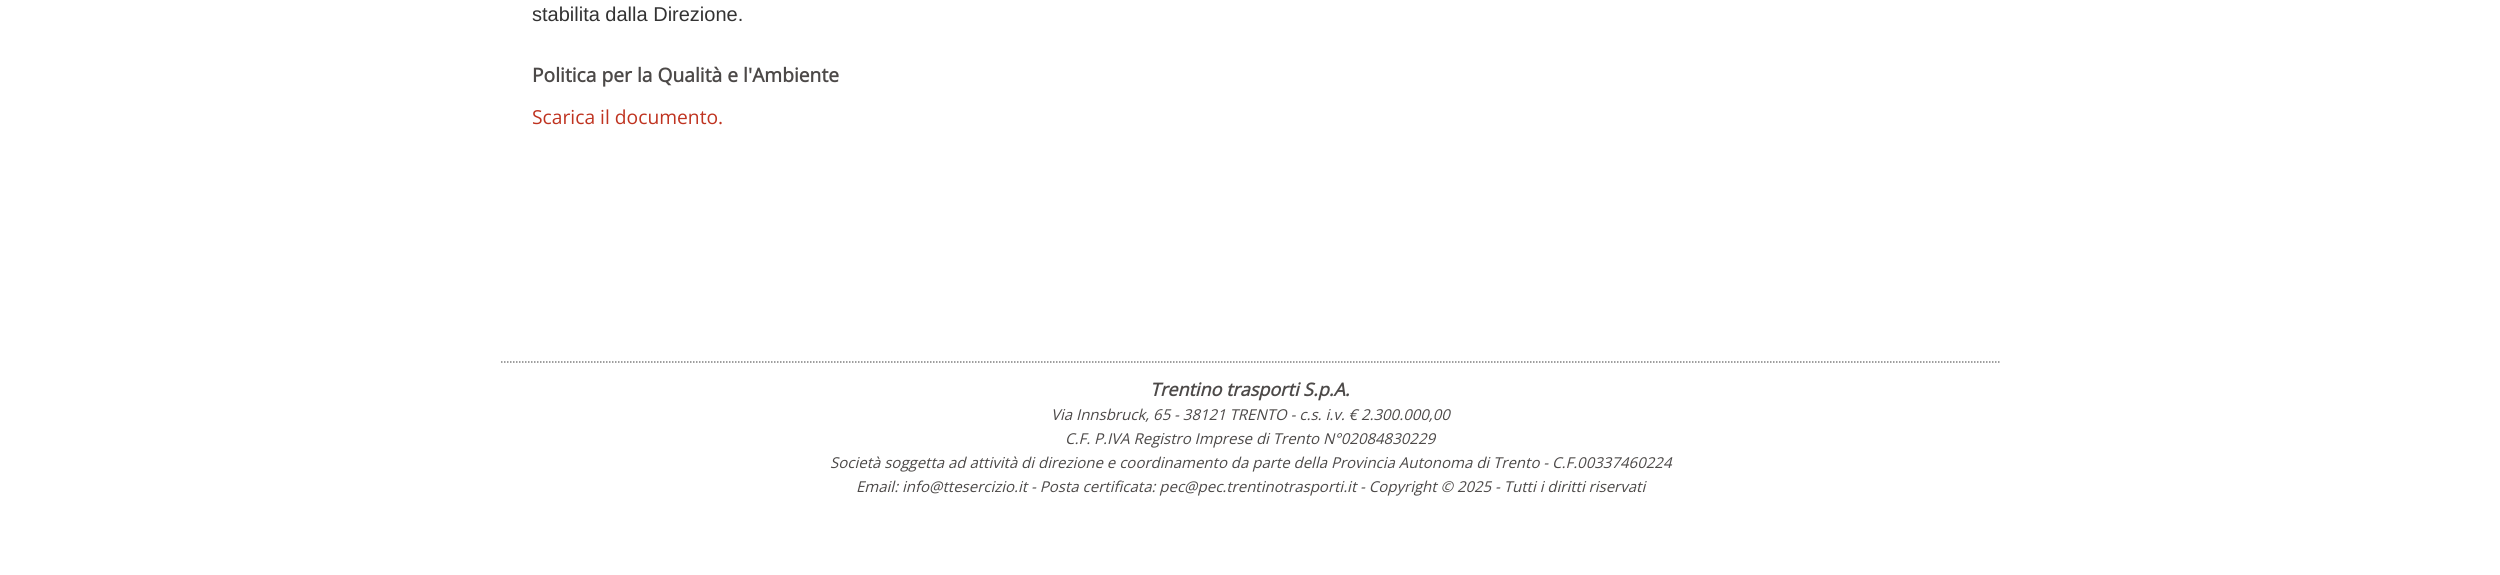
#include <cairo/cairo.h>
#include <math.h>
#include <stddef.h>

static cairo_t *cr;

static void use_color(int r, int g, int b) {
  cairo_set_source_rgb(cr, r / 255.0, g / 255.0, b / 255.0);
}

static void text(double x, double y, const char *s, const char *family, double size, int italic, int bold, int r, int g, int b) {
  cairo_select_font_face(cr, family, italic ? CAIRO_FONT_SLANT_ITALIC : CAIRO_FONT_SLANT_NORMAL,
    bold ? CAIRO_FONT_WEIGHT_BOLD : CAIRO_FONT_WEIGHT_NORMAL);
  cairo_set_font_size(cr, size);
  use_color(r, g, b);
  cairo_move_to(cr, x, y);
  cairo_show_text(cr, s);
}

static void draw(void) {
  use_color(255, 255, 255);
  cairo_paint(cr);
  cairo_new_path(cr);
  cairo_move_to(cr, 501, 362);
  cairo_line_to(cr, 1999.5, 362);
  use_color(128, 128, 128);
  cairo_set_line_width(cr, 1.5);
  cairo_set_dash(cr, (double[]){1.5, 1.5}, 2, 0);
  cairo_stroke(cr);
  text(532, 21, "stabilita dalla Direzione.", "Liberation Sans", 20, 0, 0, 51, 51, 51);
  text(532, 82, "Politica per la Qualità e l'Ambiente", "Open Sans", 19.25, 0, 1, 76, 73, 72);
  text(532, 124, "Scarica il documento.", "Open Sans", 19.25, 0, 0, 191, 51, 32);
  text(1150, 396, "Trentino trasporti S.p.A.", "Open Sans", 18, 1, 1, 76, 73, 72);
  text(1051, 420, "Via Innsbruck, 65 - 38121 TRENTO - c.s. i.v. € 2.300.000,00", "Open Sans", 15, 1, 0, 76, 73, 72);
  text(1065, 444, "C.F. P.IVA Registro Imprese di Trento N°02084830229", "Open Sans", 15, 1, 0, 76, 73, 72);
  text(830, 468, "Società soggetta ad attività di direzione e coordinamento da parte della Provincia Autonoma di Trento - C.F.00337460224", "Open Sans", 15, 1, 0, 76, 73, 72);
  text(856, 492, "Email: info@ttesercizio.it - Posta certificata: pec@pec.trentinotrasporti.it - Copyright © 2025 - Tutti i diritti riservati", "Open Sans", 15, 1, 0, 76, 73, 72);
}

int main(void) {
  cairo_surface_t *surface = cairo_image_surface_create(CAIRO_FORMAT_RGB24, 2500, 575);
  cr = cairo_create(surface);
  cairo_font_options_t *options = cairo_font_options_create();
  cairo_font_options_set_hint_metrics(options, CAIRO_HINT_METRICS_OFF);
  cairo_font_options_set_hint_style(options, CAIRO_HINT_STYLE_NONE);
  cairo_set_font_options(cr, options);
  cairo_set_miter_limit(cr, 4);
  draw();
  cairo_surface_write_to_png(surface, "out.png");
  cairo_font_options_destroy(options);
  cairo_destroy(cr);
  cairo_surface_destroy(surface);
  return 0;
}
